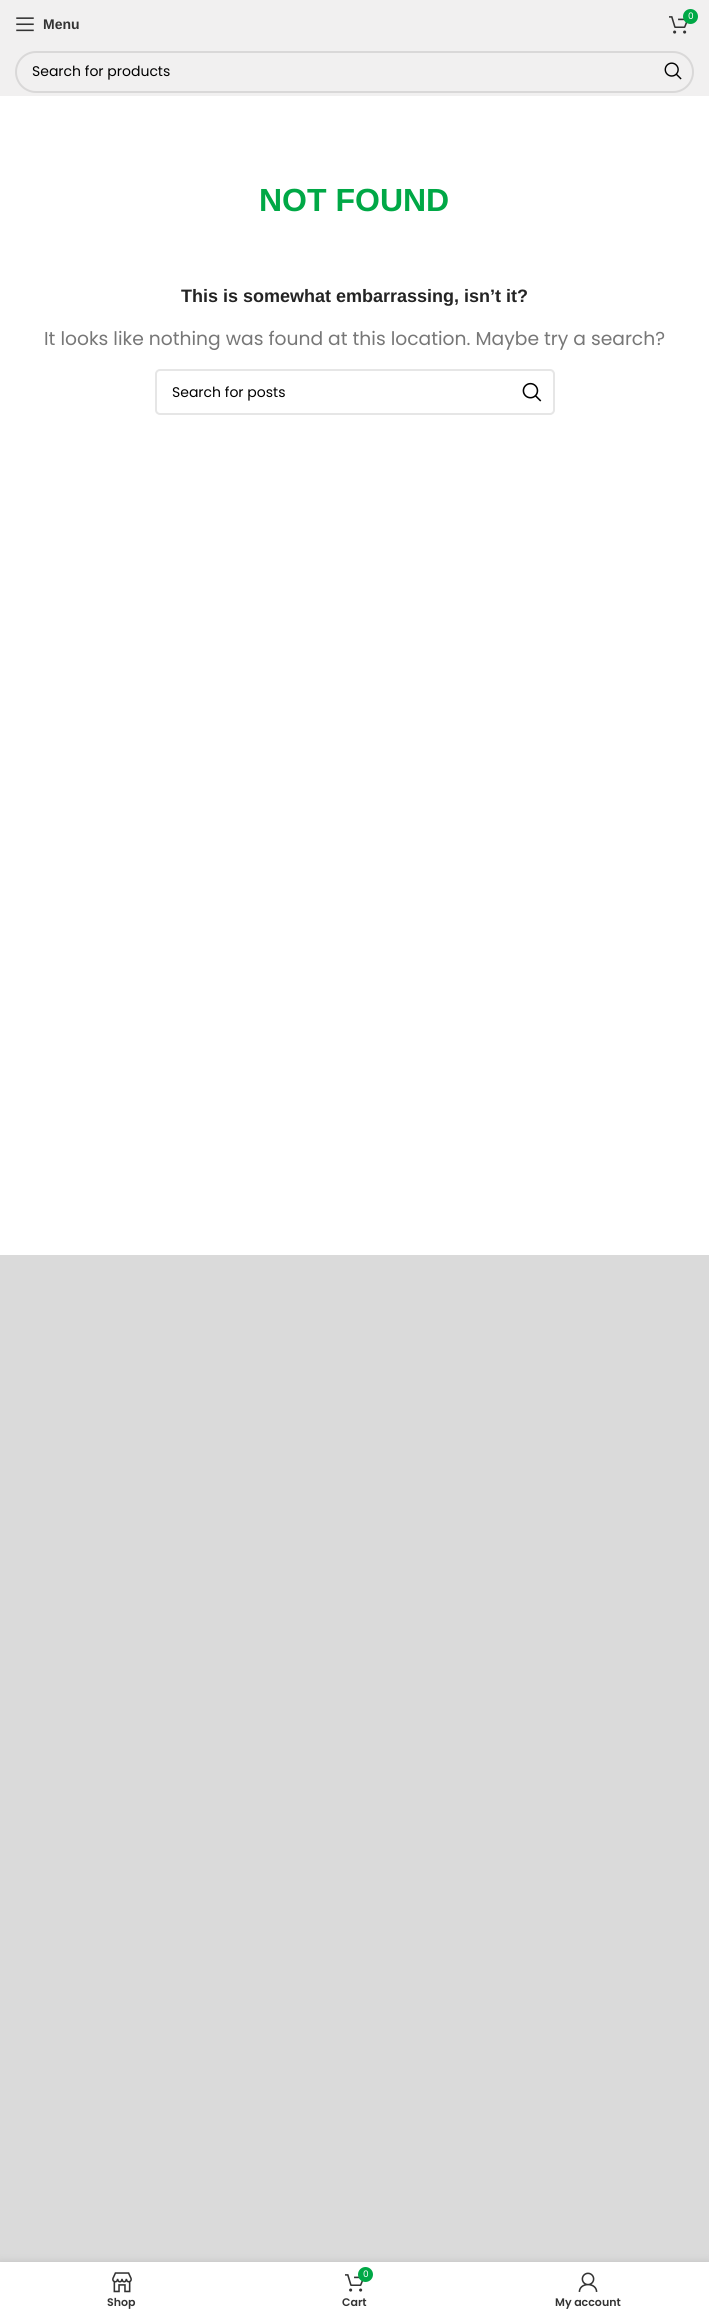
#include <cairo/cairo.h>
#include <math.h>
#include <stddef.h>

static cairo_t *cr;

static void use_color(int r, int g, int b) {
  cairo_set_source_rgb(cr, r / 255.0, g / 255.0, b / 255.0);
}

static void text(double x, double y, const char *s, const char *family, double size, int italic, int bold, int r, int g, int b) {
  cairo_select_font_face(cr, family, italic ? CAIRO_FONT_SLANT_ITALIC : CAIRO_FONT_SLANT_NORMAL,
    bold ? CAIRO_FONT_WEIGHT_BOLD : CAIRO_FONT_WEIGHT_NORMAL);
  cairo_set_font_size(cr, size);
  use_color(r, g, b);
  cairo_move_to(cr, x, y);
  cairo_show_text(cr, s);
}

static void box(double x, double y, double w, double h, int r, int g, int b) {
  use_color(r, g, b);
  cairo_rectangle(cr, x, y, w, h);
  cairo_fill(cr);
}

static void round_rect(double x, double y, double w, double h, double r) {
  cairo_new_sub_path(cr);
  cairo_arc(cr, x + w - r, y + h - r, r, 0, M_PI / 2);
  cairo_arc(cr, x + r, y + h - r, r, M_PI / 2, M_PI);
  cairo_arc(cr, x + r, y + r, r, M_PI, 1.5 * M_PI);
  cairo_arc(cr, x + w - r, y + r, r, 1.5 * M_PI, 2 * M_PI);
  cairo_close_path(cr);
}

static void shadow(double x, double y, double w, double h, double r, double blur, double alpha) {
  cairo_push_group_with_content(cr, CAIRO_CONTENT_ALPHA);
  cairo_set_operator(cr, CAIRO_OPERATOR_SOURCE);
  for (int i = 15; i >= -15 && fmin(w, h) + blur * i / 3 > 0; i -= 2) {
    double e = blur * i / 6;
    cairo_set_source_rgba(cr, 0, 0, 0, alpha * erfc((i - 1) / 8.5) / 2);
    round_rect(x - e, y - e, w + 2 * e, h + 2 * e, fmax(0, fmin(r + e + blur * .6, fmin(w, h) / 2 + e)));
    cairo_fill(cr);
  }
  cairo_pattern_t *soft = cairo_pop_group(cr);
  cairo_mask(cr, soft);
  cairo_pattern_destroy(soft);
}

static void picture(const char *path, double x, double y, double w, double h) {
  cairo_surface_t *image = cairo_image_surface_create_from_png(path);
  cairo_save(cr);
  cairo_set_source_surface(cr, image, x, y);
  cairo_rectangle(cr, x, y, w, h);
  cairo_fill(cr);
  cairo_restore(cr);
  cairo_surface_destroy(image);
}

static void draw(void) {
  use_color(255, 255, 255);
  cairo_paint(cr);
  box(0, 0, 709, 96, 241, 240, 240);
  picture("img_01.png", 669, 16, 19, 18);
  use_color(0, 168, 70);
  cairo_arc(cr, 690.5, 16.5, 7.5, 0, 2 * M_PI);
  cairo_fill(cr);
  picture("img_02.png", 16, 17, 18, 15);
  round_rect(16, 52, 677, 40, 20);
  use_color(217, 216, 216);
  cairo_stroke(cr);
  picture("img_03.png", 664, 62, 18, 18);
  round_rect(156, 370, 398, 44, 4);
  use_color(230, 230, 230);
  cairo_stroke(cr);
  picture("img_04.png", 522, 382, 20, 20);
  box(0, 1255, 709, 1007, 218, 218, 218);
  use_color(0, 0, 0);
  shadow(0, 2262, 709, 55, 0, 4.5, 0.12);
  box(0, 2262, 709, 55, 255, 255, 255);
  picture("img_05.png", 112, 2272, 20, 21);
  picture("img_06.png", 345, 2274, 19, 18);
  use_color(0, 168, 70);
  cairo_arc(cr, 365.5, 2274.5, 7.5, 0, 2 * M_PI);
  cairo_fill(cr);
  picture("img_07.png", 578, 2272, 20, 20);
  text(688, 19, "0", "Poppins", 9, 0, 0, 255, 255, 255);
  text(43, 29, "Menu", "Liberation Sans", 14, 0, 1, 51, 51, 51);
  text(32, 76, "Search for products", "Poppins", 14, 0, 0, 0, 0, 0);
  text(259, 211, "NOT FOUND", "Liberation Sans", 32, 0, 1, 0, 168, 70);
  text(181, 302, "This is somewhat embarrassing, isn’t it?", "Liberation Sans", 18, 0, 1, 36, 36, 36);
  text(44, 345, "It looks like nothing was found at this location. Maybe try a search?", "Poppins", 18.7, 0, 0, 119, 119, 119);
  text(172, 397, "Search for posts", "Poppins", 14, 0, 0, 0, 0, 0);
  text(107, 2306, "Shop", "Poppins SemiBold", 11, 0, 0, 51, 51, 51);
  text(363, 2277, "0", "Poppins", 9, 0, 0, 255, 255, 255);
  text(342, 2306, "Cart", "Poppins SemiBold", 11, 0, 0, 51, 51, 51);
  text(555, 2306, "My account", "Poppins SemiBold", 11, 0, 0, 51, 51, 51);
}

int main(void) {
  cairo_surface_t *surface = cairo_image_surface_create(CAIRO_FORMAT_RGB24, 709, 2317);
  cr = cairo_create(surface);
  cairo_font_options_t *options = cairo_font_options_create();
  cairo_font_options_set_hint_metrics(options, CAIRO_HINT_METRICS_OFF);
  cairo_font_options_set_hint_style(options, CAIRO_HINT_STYLE_NONE);
  cairo_set_font_options(cr, options);
  cairo_set_miter_limit(cr, 4);
  draw();
  cairo_surface_write_to_png(surface, "out.png");
  cairo_font_options_destroy(options);
  cairo_destroy(cr);
  cairo_surface_destroy(surface);
  return 0;
}
